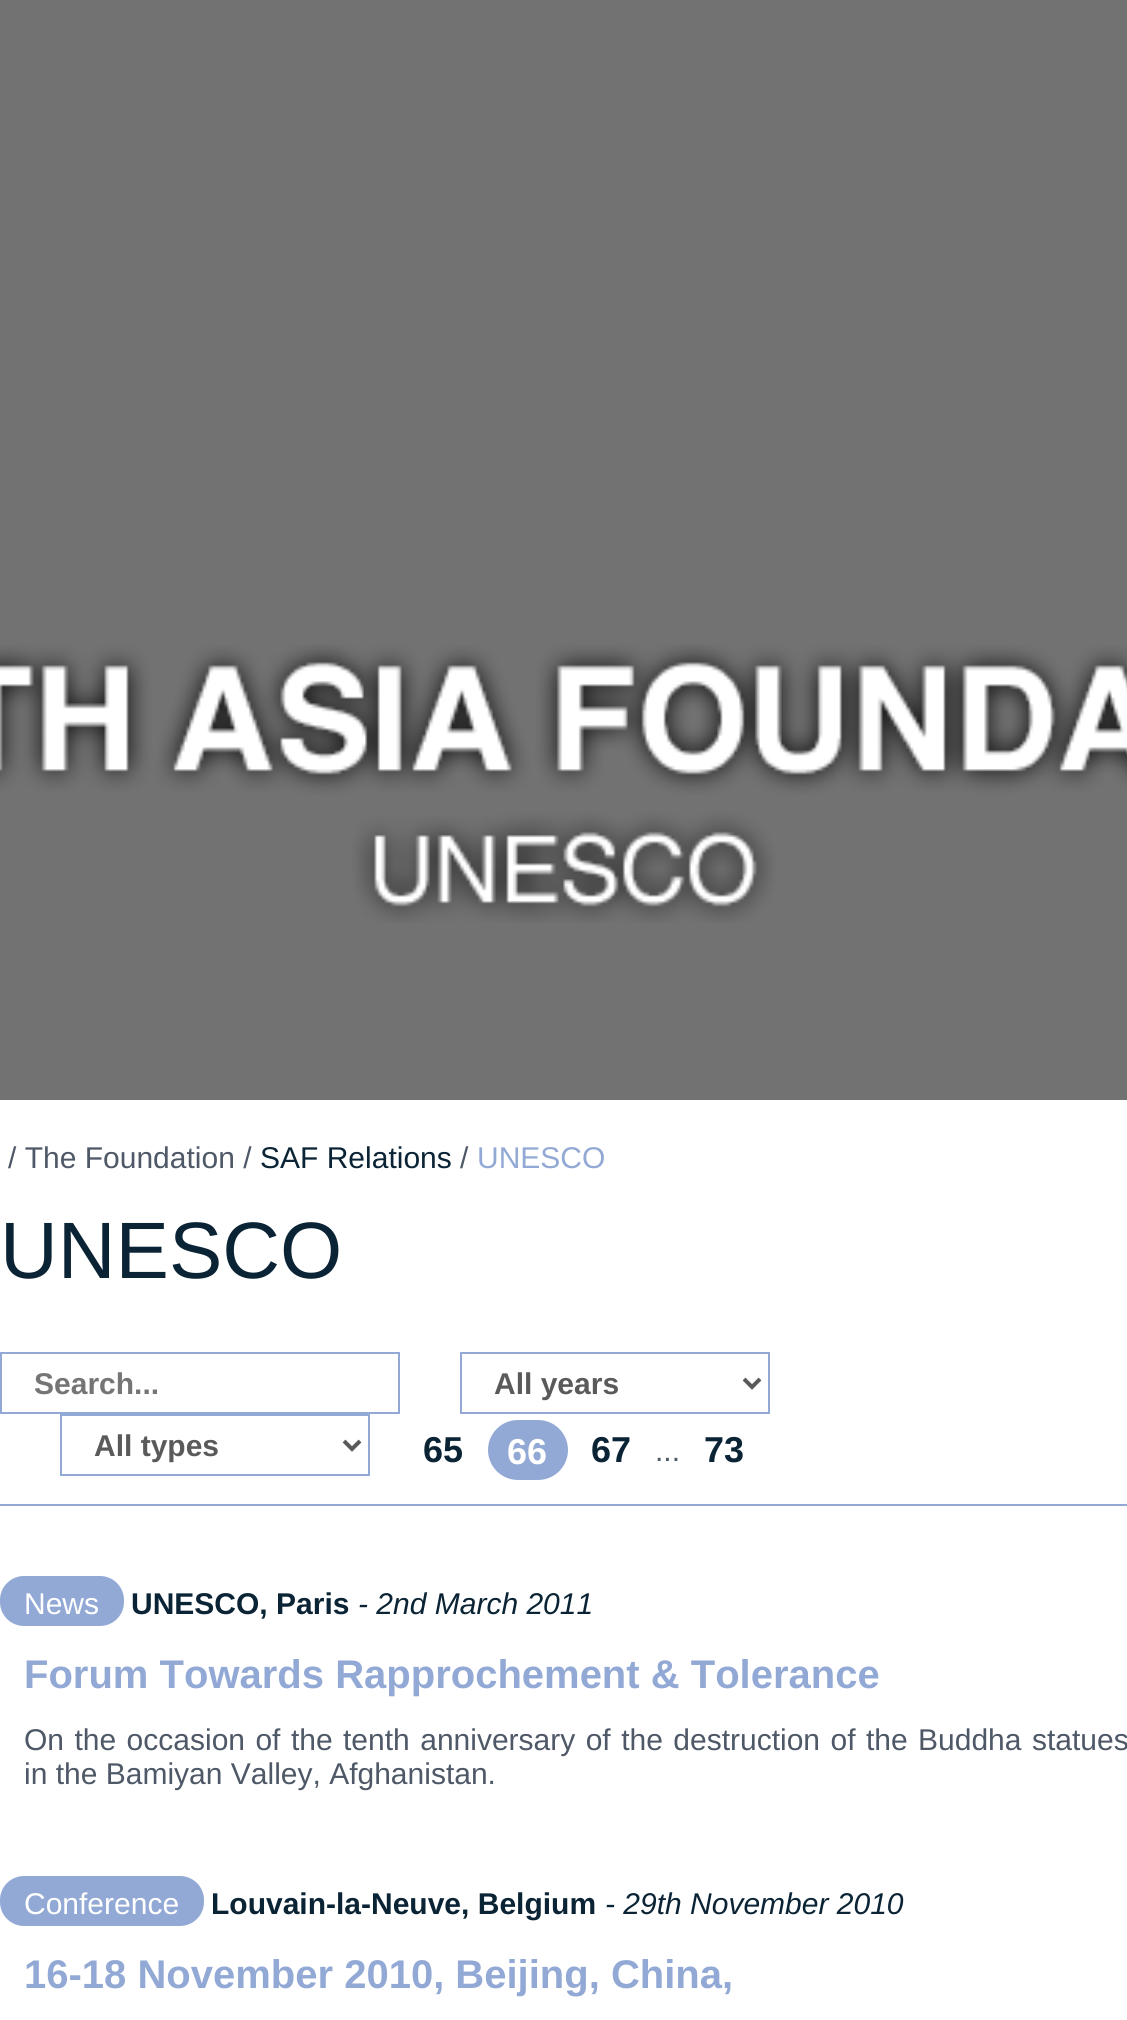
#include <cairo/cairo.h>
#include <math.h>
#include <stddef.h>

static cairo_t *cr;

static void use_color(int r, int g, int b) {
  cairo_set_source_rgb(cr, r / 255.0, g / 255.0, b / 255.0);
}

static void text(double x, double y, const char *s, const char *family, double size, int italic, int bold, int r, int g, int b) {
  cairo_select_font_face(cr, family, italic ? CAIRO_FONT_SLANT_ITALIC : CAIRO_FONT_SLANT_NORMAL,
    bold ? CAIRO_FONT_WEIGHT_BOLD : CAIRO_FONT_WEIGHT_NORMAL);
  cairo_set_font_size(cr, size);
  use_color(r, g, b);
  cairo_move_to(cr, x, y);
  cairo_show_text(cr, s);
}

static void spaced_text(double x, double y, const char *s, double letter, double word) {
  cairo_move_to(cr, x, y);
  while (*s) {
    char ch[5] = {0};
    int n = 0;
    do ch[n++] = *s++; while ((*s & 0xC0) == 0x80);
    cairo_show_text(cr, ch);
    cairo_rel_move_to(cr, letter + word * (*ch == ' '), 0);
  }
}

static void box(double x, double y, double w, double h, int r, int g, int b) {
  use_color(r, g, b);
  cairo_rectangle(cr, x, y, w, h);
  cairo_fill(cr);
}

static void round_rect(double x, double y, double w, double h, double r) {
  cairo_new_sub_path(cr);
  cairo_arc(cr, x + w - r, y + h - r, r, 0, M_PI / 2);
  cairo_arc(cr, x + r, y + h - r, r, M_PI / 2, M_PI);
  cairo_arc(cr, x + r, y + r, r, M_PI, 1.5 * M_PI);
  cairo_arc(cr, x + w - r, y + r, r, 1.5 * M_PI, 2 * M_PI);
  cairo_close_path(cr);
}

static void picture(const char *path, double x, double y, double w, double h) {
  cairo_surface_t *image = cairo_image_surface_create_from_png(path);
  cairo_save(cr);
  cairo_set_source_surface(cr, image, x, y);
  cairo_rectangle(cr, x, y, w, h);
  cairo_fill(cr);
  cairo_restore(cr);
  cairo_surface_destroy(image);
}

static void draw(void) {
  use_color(255, 255, 255);
  cairo_paint(cr);
  box(0, 0, 1127, 1100, 114, 114, 114);
  picture("img_01.png", 0, 644, 1127, 279);
  cairo_rectangle(cr, 1, 1353, 398, 60);
  use_color(147, 169, 213);
  cairo_stroke(cr);
  cairo_rectangle(cr, 461, 1353, 308, 60);
  cairo_stroke(cr);
  cairo_new_path(cr);
  cairo_move_to(cr, 744, 1379);
  cairo_line_to(cr, 752, 1387);
  cairo_line_to(cr, 760, 1379);
  use_color(90, 90, 90);
  cairo_set_line_width(cr, 4);
  cairo_stroke(cr);
  cairo_rectangle(cr, 61, 1415, 308, 60);
  use_color(147, 169, 213);
  cairo_set_line_width(cr, 2);
  cairo_stroke(cr);
  cairo_new_path(cr);
  cairo_move_to(cr, 344, 1441);
  cairo_line_to(cr, 352, 1449);
  cairo_line_to(cr, 360, 1441);
  use_color(90, 90, 90);
  cairo_set_line_width(cr, 4);
  cairo_stroke(cr);
  box(0, 1504, 1127, 2, 147, 169, 213);
  round_rect(488, 1420, 80, 60, 30);
  cairo_fill(cr);
  round_rect(0, 1576, 124, 50, 24);
  cairo_fill(cr);
  round_rect(0, 1876, 204, 50, 24);
  cairo_fill(cr);
  text(8, 1168, "/ The Foundation /", "Liberation Sans", 30, 0, 0, 78, 88, 103);
  text(260, 1168, "SAF Relations", "Liberation Sans", 30, 0, 0, 11, 36, 53);
  text(460, 1168, "/", "Liberation Sans", 30, 0, 0, 78, 88, 103);
  text(477, 1168, "UNESCO", "Liberation Sans", 30, 0, 0, 147, 169, 213);
  text(0, 1278, "UNESCO", "Liberation Sans", 80, 0, 0, 11, 36, 53);
  text(34, 1394, "Search...", "Liberation Sans", 30, 0, 1, 117, 117, 117);
  text(494, 1394, "All years", "Liberation Sans", 30, 0, 1, 90, 90, 90);
  text(94, 1456, "All types", "Liberation Sans", 30, 0, 1, 90, 90, 90);
  text(423, 1462, "65", "Liberation Sans", 36, 0, 1, 11, 36, 53);
  text(507, 1464, "66", "Liberation Sans", 36, 0, 1, 255, 255, 255);
  text(591, 1462, "67", "Liberation Sans", 36, 0, 1, 11, 36, 53);
  text(655, 1461, "...", "Liberation Sans", 30, 0, 0, 78, 88, 103);
  text(704, 1462, "73", "Liberation Sans", 36, 0, 1, 11, 36, 53);
  text(24, 1614, "News", "Liberation Sans", 30, 0, 0, 255, 255, 255);
  text(131, 1614, "UNESCO, Paris", "Liberation Sans", 30, 0, 1, 11, 36, 53);
  text(358, 1614, "- 2nd March 2011", "Liberation Sans", 30, 1, 0, 11, 36, 53);
  text(24, 1688, "Forum Towards Rapprochement & Tolerance", "Liberation Sans", 40, 0, 1, 147, 169, 213);
  cairo_select_font_face(cr, "Liberation Sans", CAIRO_FONT_SLANT_NORMAL, CAIRO_FONT_WEIGHT_NORMAL);
  cairo_set_font_size(cr, 30);
  use_color(78, 88, 103);
  spaced_text(24, 1750, "On the occasion of the tenth anniversary of the destruction of the Buddha statues", 0, 2.1);
  text(24, 1784, "in the Bamiyan Valley, Afghanistan.", "Liberation Sans", 30, 0, 0, 78, 88, 103);
  text(24, 1914, "Conference", "Liberation Sans", 30, 0, 0, 255, 255, 255);
  text(211, 1914, "Louvain-la-Neuve, Belgium", "Liberation Sans", 30, 0, 1, 11, 36, 53);
  text(605, 1914, "- 29th November 2010", "Liberation Sans", 30, 1, 0, 11, 36, 53);
  text(24, 1988, "16-18 November 2010, Beijing, China,", "Liberation Sans", 40, 0, 1, 147, 169, 213);
}

int main(void) {
  cairo_surface_t *surface = cairo_image_surface_create(CAIRO_FORMAT_RGB24, 1127, 2020);
  cr = cairo_create(surface);
  cairo_font_options_t *options = cairo_font_options_create();
  cairo_font_options_set_hint_metrics(options, CAIRO_HINT_METRICS_OFF);
  cairo_font_options_set_hint_style(options, CAIRO_HINT_STYLE_NONE);
  cairo_set_font_options(cr, options);
  cairo_set_miter_limit(cr, 4);
  draw();
  cairo_surface_write_to_png(surface, "out.png");
  cairo_font_options_destroy(options);
  cairo_destroy(cr);
  cairo_surface_destroy(surface);
  return 0;
}
